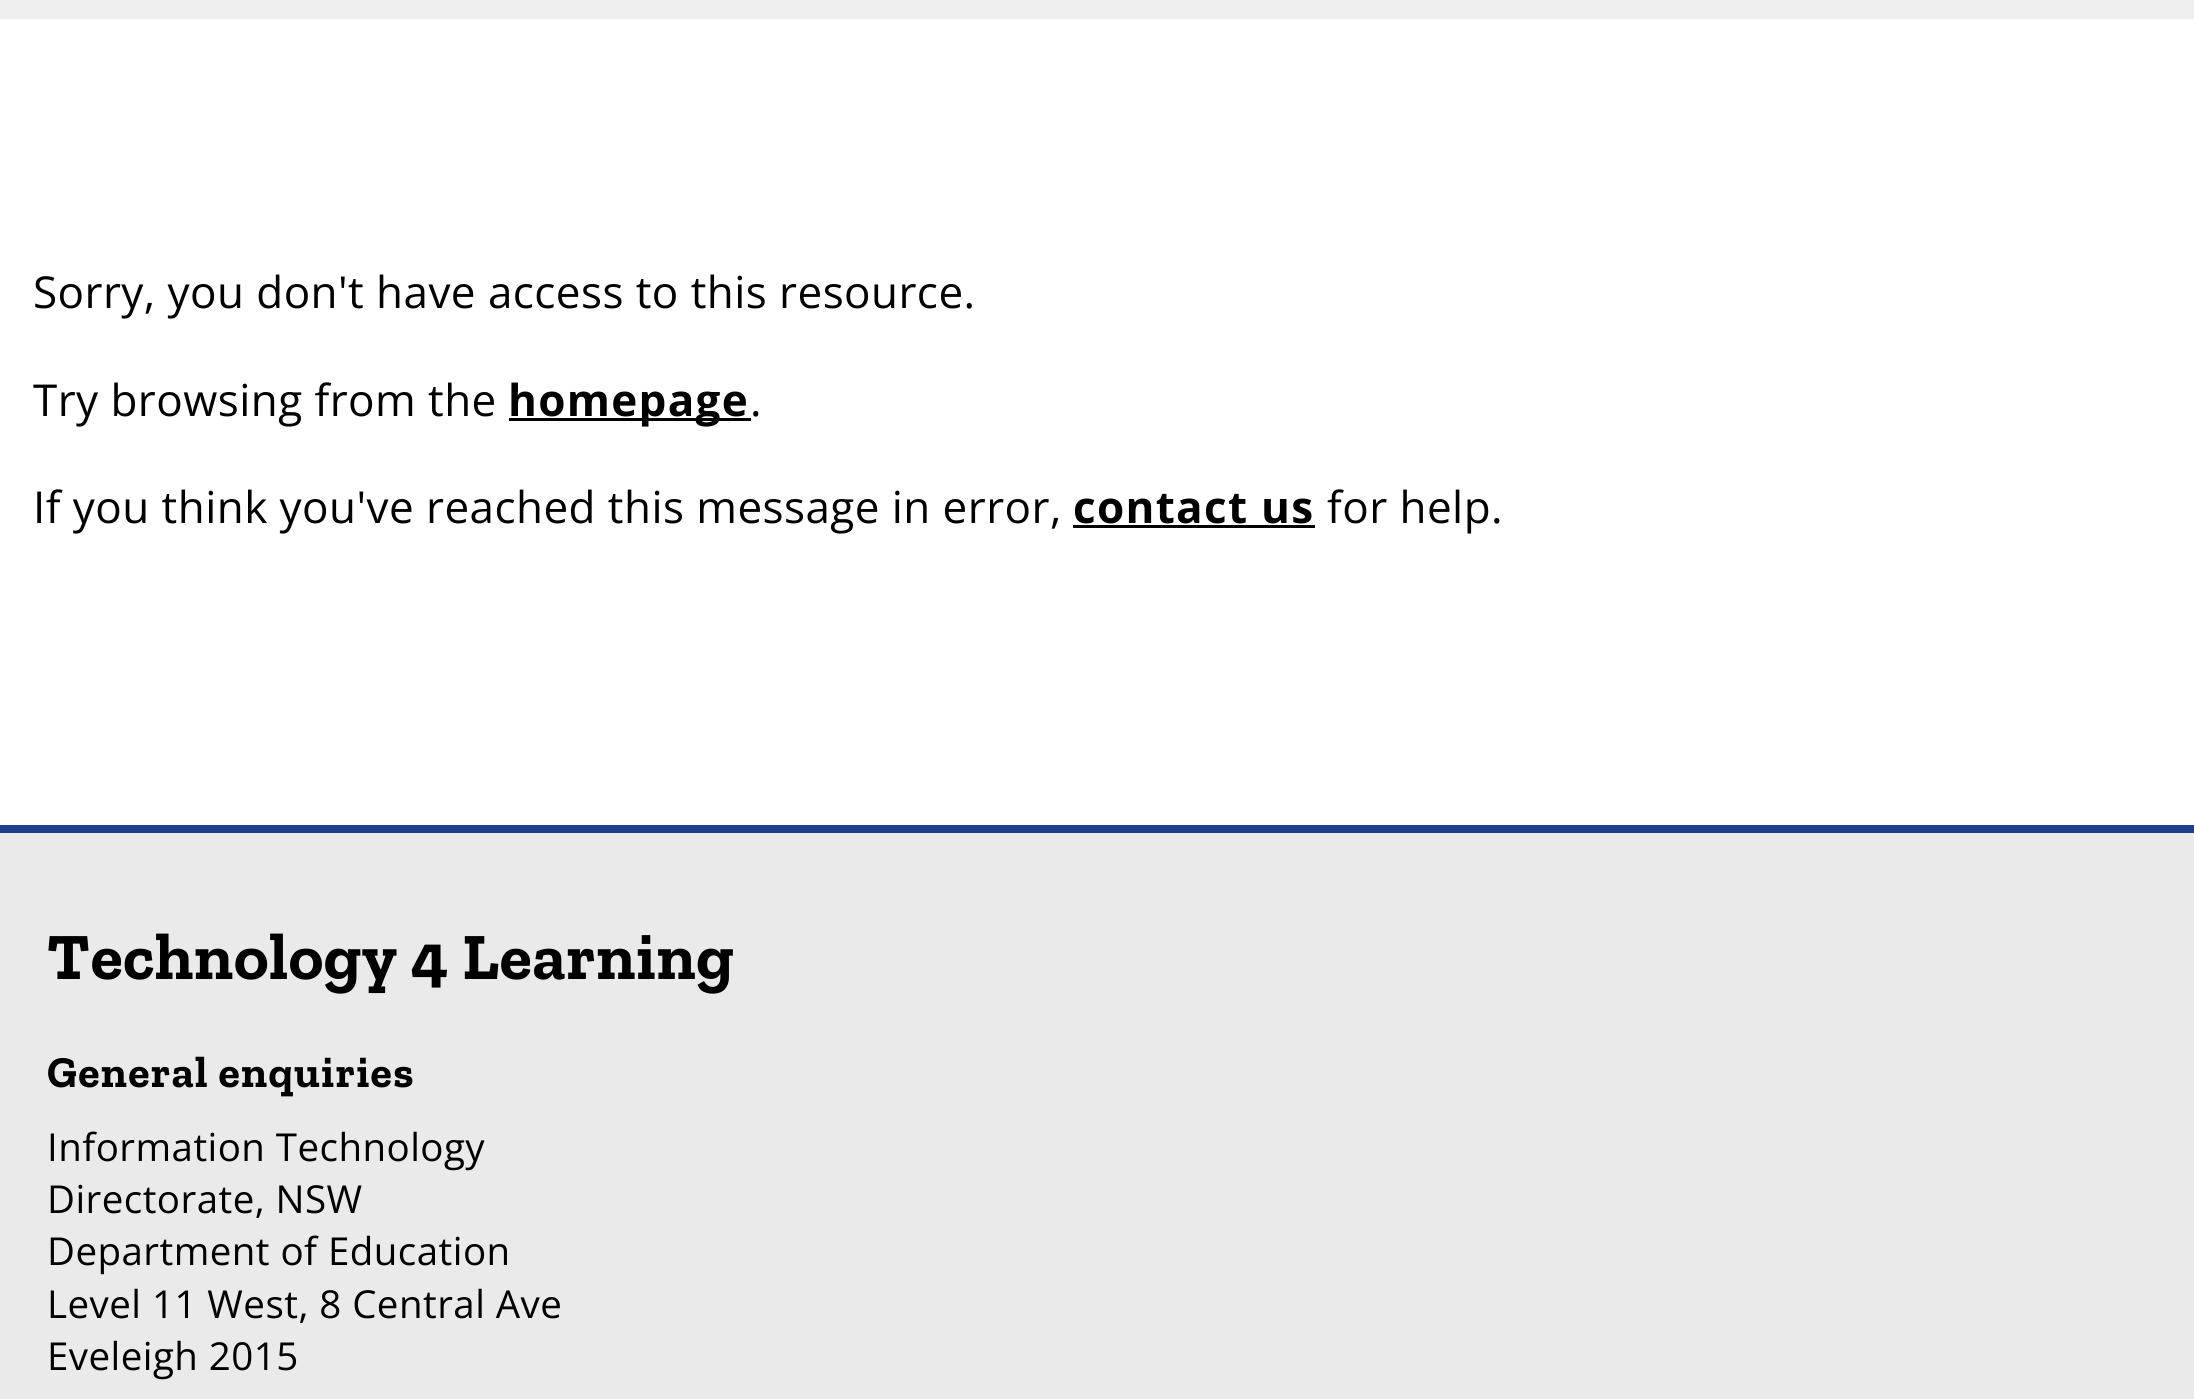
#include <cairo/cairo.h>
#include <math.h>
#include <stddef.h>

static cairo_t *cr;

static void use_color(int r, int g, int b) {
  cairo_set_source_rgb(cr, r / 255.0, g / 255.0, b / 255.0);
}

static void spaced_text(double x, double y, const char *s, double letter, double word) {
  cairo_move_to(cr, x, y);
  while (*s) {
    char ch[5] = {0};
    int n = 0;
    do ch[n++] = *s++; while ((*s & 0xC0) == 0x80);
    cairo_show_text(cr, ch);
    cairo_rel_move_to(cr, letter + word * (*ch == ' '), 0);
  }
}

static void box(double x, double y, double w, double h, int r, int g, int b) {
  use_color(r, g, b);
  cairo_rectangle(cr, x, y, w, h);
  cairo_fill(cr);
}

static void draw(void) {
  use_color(255, 255, 255);
  cairo_paint(cr);
  box(0, 0, 2194, 19, 239, 239, 239);
  box(509, 418, 242, 3, 0, 0, 0);
  box(1073, 525, 242, 3, 0, 0, 0);
  box(0, 833, 2194, 566, 234, 234, 234);
  box(0, 825, 2194, 8, 29, 66, 138);
  cairo_select_font_face(cr, "Open Sans", CAIRO_FONT_SLANT_NORMAL, CAIRO_FONT_WEIGHT_NORMAL);
  cairo_set_font_size(cr, 44);
  use_color(0, 0, 0);
  spaced_text(33, 308, "Sorry, you don't have access to this resource.", 0.45, 0);
  spaced_text(33, 416, "Try browsing from the", 0.45, 0);
  cairo_select_font_face(cr, "Open Sans", CAIRO_FONT_SLANT_NORMAL, CAIRO_FONT_WEIGHT_BOLD);
  spaced_text(508, 416, "homepage", 1.3, 0);
  cairo_select_font_face(cr, "Open Sans", CAIRO_FONT_SLANT_NORMAL, CAIRO_FONT_WEIGHT_NORMAL);
  spaced_text(750, 416, ".", 0.45, 0);
  spaced_text(33, 523, "If you think you've reached this message in error,", 0.45, 0);
  cairo_select_font_face(cr, "Open Sans", CAIRO_FONT_SLANT_NORMAL, CAIRO_FONT_WEIGHT_BOLD);
  spaced_text(1073, 523, "contact us", 1.3, 0);
  cairo_select_font_face(cr, "Open Sans", CAIRO_FONT_SLANT_NORMAL, CAIRO_FONT_WEIGHT_NORMAL);
  spaced_text(1327, 523, "for help.", 0.45, 0);
  cairo_select_font_face(cr, "Zilla Slab", CAIRO_FONT_SLANT_NORMAL, CAIRO_FONT_WEIGHT_BOLD);
  cairo_set_font_size(cr, 66);
  spaced_text(47, 979, "Technology 4 Learning", 0.7, 0);
  cairo_set_font_size(cr, 44);
  spaced_text(47, 1087, "General enquiries", 1.3, 0);
  cairo_select_font_face(cr, "Open Sans", CAIRO_FONT_SLANT_NORMAL, CAIRO_FONT_WEIGHT_NORMAL);
  cairo_set_font_size(cr, 38.5);
  spaced_text(47, 1161, "Information Technology", 0.45, 0);
  spaced_text(47, 1213, "Directorate, NSW", 0.45, 0);
  spaced_text(47, 1265, "Department of Education", 0.45, 0);
  spaced_text(47, 1318, "Level 11 West, 8 Central Ave", 0.45, 0);
  spaced_text(47, 1370, "Eveleigh 2015", 0.45, 0);
}

int main(void) {
  cairo_surface_t *surface = cairo_image_surface_create(CAIRO_FORMAT_RGB24, 2194, 1399);
  cr = cairo_create(surface);
  cairo_font_options_t *options = cairo_font_options_create();
  cairo_font_options_set_hint_metrics(options, CAIRO_HINT_METRICS_OFF);
  cairo_font_options_set_hint_style(options, CAIRO_HINT_STYLE_NONE);
  cairo_set_font_options(cr, options);
  cairo_set_miter_limit(cr, 4);
  draw();
  cairo_surface_write_to_png(surface, "out.png");
  cairo_font_options_destroy(options);
  cairo_destroy(cr);
  cairo_surface_destroy(surface);
  return 0;
}
